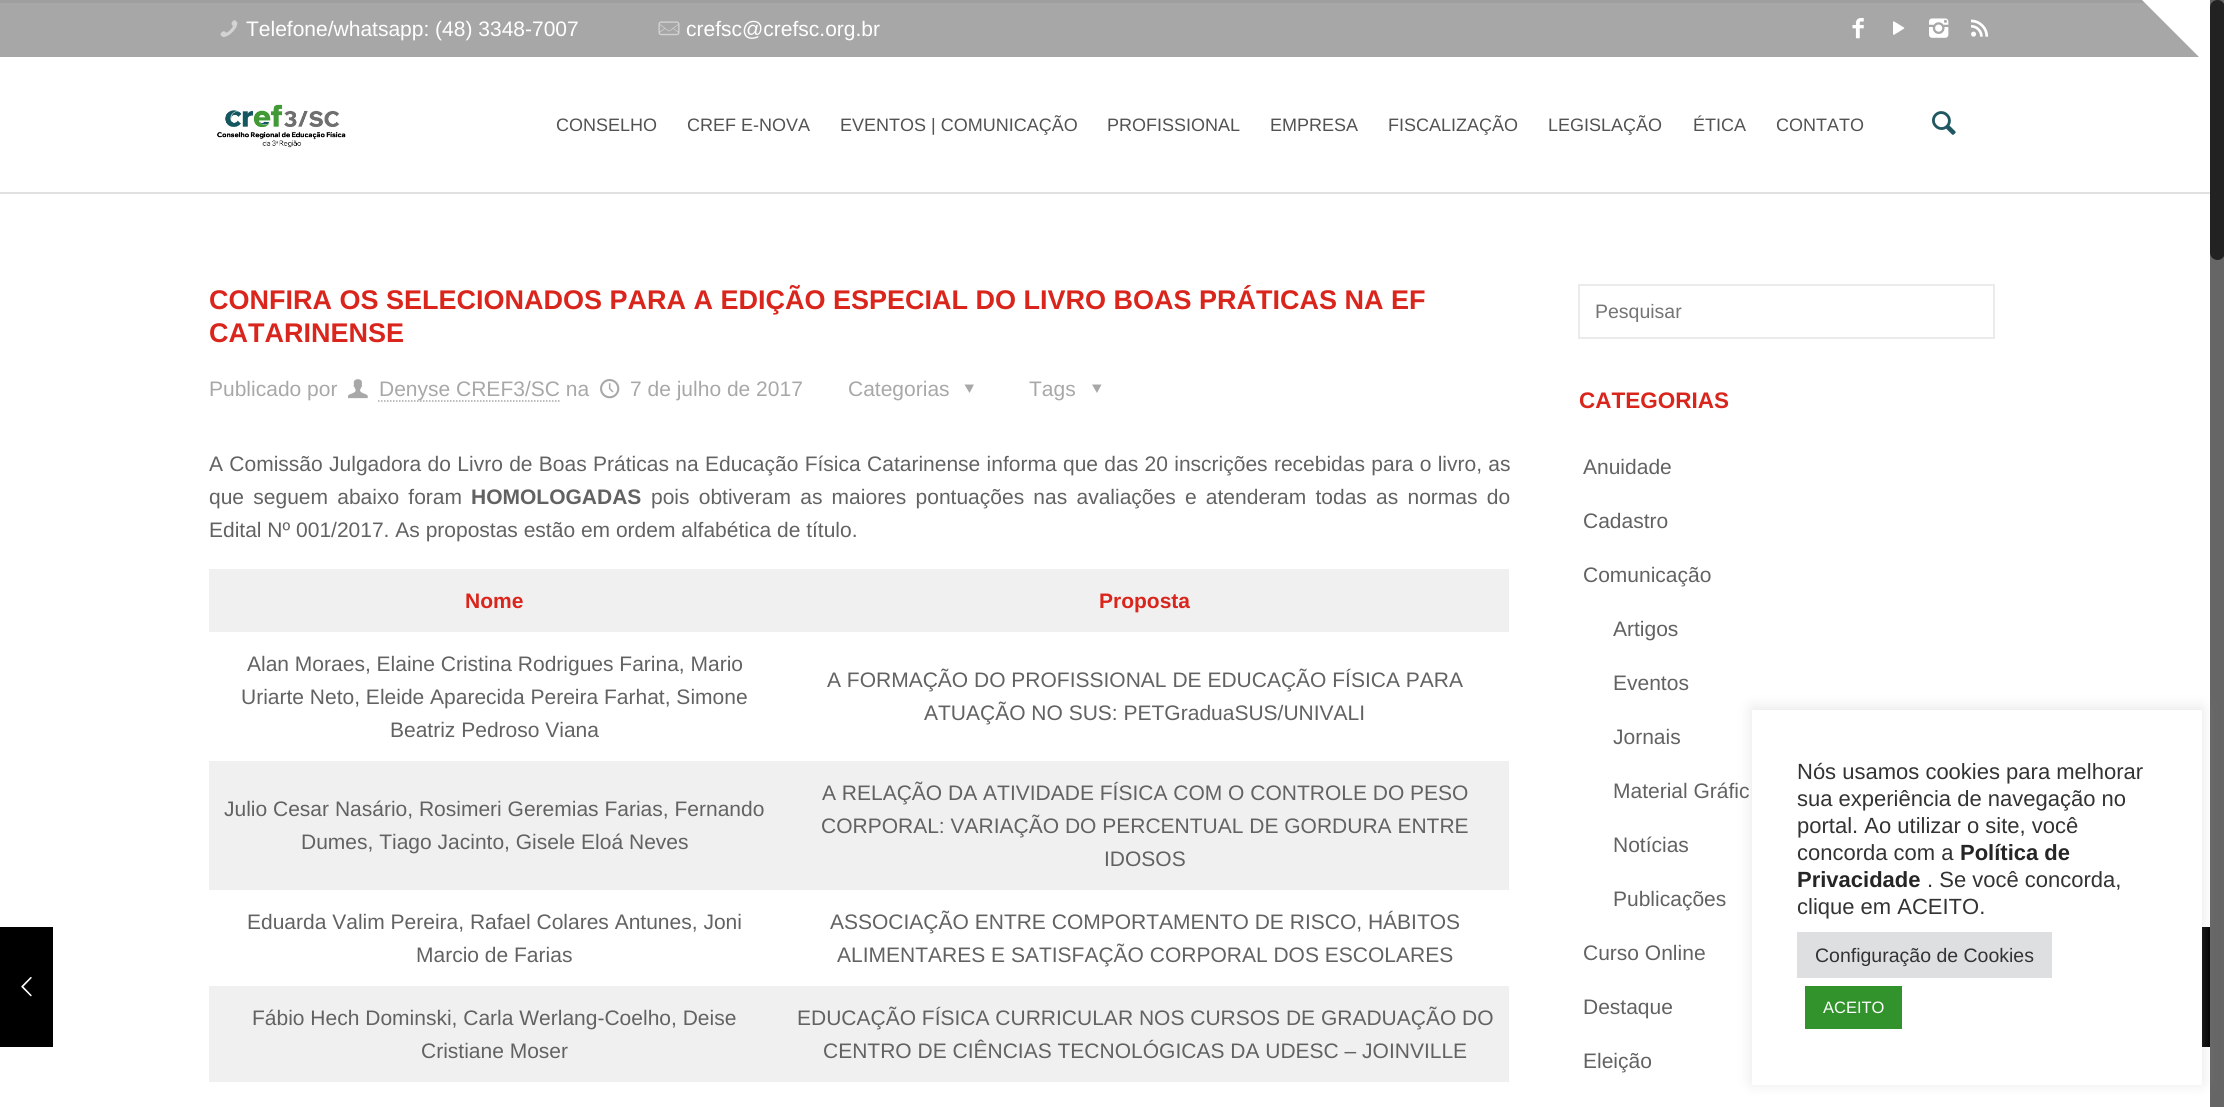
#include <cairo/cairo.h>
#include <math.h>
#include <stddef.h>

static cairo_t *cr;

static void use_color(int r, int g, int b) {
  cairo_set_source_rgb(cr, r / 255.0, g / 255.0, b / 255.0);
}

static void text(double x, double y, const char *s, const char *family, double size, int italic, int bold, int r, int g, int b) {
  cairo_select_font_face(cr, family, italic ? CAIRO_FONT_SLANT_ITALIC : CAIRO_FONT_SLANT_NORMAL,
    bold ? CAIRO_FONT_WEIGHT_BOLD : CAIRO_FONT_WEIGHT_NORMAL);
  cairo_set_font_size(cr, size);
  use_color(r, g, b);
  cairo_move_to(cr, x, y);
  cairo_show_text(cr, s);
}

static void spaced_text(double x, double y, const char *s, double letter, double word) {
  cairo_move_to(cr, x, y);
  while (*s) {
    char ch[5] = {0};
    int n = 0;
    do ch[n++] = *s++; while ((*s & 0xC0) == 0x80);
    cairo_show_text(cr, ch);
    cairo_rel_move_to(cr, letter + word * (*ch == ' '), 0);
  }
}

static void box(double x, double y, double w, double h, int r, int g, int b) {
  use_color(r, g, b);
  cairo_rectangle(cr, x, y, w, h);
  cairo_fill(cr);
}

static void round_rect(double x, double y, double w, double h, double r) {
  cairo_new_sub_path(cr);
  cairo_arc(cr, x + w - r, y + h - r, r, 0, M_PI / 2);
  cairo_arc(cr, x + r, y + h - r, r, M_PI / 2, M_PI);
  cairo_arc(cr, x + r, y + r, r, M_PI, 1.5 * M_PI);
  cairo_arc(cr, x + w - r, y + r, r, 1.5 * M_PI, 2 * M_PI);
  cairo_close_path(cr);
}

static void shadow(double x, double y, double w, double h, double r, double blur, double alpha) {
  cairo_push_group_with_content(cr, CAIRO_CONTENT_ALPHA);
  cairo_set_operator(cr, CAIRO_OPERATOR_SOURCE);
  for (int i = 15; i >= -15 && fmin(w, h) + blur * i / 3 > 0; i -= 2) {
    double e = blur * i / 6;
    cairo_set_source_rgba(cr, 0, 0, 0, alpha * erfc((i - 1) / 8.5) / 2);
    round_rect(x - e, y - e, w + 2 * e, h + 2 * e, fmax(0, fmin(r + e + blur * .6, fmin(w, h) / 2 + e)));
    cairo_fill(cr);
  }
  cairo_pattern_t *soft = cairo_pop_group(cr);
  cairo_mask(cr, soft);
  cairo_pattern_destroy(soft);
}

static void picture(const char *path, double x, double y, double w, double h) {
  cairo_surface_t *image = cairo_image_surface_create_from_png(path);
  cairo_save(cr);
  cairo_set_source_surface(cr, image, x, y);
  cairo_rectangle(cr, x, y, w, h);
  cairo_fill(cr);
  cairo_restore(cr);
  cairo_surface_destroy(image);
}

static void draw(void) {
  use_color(255, 255, 255);
  cairo_paint(cr);
  box(0, 0, 2199, 57, 167, 167, 167);
  cairo_set_source_rgba(cr, 0, 0, 0, 0.05);
  cairo_rectangle(cr, 0, 0, 2145, 3);
  cairo_fill(cr);
  use_color(255, 255, 255);
  cairo_new_path(cr);
  cairo_move_to(cr, 2210, 0);
  cairo_line_to(cr, 2210, 68);
  cairo_line_to(cr, 2142, 0);
  cairo_close_path(cr);
  cairo_fill(cr);
  box(2210, 0, 14, 1107, 102, 102, 102);
  use_color(34, 34, 34);
  round_rect(2210, 0, 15, 260, 7.5);
  cairo_fill(cr);
  box(0, 927, 53, 120, 0, 0, 0);
  picture("img_01.png", 21, 976, 11, 21);
  picture("img_02.png", 220, 20, 18, 17);
  picture("img_03.png", 658, 21, 22, 15);
  picture("img_04.png", 1852, 18, 12, 21);
  picture("img_05.png", 1893, 21, 12, 14);
  picture("img_06.png", 1929, 18, 20, 20);
  picture("img_07.png", 1971, 19, 18, 18);
  box(0, 192, 2210, 2, 225, 225, 225);
  picture("img_08.png", 217, 104, 129, 44);
  picture("img_09.png", 1932, 111, 24, 24);
  picture("img_10.png", 348, 379, 20, 20);
  cairo_new_path(cr);
  cairo_move_to(cr, 378, 401);
  cairo_line_to(cr, 559.5, 401);
  use_color(168, 168, 168);
  cairo_set_line_width(cr, 1.5);
  cairo_set_dash(cr, (double[]){1.5, 1.5}, 2, 0);
  cairo_stroke(cr);
  picture("img_11.png", 600, 379, 20, 20);
  cairo_new_path(cr);
  cairo_move_to(cr, 974, 384.5);
  cairo_line_to(cr, 969.5, 393);
  cairo_line_to(cr, 964.5, 384.5);
  cairo_close_path(cr);
  cairo_fill(cr);
  cairo_new_path(cr);
  cairo_move_to(cr, 1101.5, 384.5);
  cairo_line_to(cr, 1097, 393);
  cairo_line_to(cr, 1092, 384.5);
  cairo_close_path(cr);
  cairo_fill(cr);
  box(209, 569, 1300, 63, 240, 240, 240);
  box(209, 761, 1300, 129, 240, 240, 240);
  box(209, 986, 1300, 96, 240, 240, 240);
  cairo_rectangle(cr, 1579, 285, 415, 53);
  use_color(235, 235, 235);
  cairo_set_line_width(cr, 2);
  cairo_set_dash(cr, NULL, 0, 0);
  cairo_stroke(cr);
  box(2202, 927, 8, 120, 0, 0, 0);
  use_color(172, 171, 171);
  shadow(1752, 708, 450, 375, 0, 7.5, 0.3);
  box(1752, 710, 450, 375, 255, 255, 255);
  box(1797, 932, 255, 46, 222, 223, 224);
  box(1805, 986, 97, 43, 50, 147, 45);
  text(246, 36, "Telefone/whatsapp: (48) 3348-7007", "Liberation Sans", 21, 0, 0, 255, 255, 255);
  text(686, 36, "crefsc@crefsc.org.br", "Liberation Sans", 21, 0, 0, 255, 255, 255);
  text(556, 131, "CONSELHO", "Liberation Sans", 18, 0, 0, 82, 82, 82);
  text(687, 131, "CREF E-NOVA", "Liberation Sans", 18, 0, 0, 82, 82, 82);
  text(840, 131, "EVENTOS | COMUNICAÇÃO", "Liberation Sans", 18, 0, 0, 82, 82, 82);
  text(1107, 131, "PROFISSIONAL", "Liberation Sans", 18, 0, 0, 82, 82, 82);
  text(1270, 131, "EMPRESA", "Liberation Sans", 18, 0, 0, 82, 82, 82);
  text(1388, 131, "FISCALIZAÇÃO", "Liberation Sans", 18, 0, 0, 82, 82, 82);
  text(1548, 131, "LEGISLAÇÃO", "Liberation Sans", 18, 0, 0, 82, 82, 82);
  text(1693, 131, "ÉTICA", "Liberation Sans", 18, 0, 0, 82, 82, 82);
  text(1776, 131, "CONTATO", "Liberation Sans", 18, 0, 0, 82, 82, 82);
  text(209, 309, "CONFIRA OS SELECIONADOS PARA A EDIÇÃO ESPECIAL DO LIVRO BOAS PRÁTICAS NA EF", "Liberation Sans", 27, 0, 1, 218, 37, 29);
  text(209, 342, "CATARINENSE", "Liberation Sans", 27, 0, 1, 218, 37, 29);
  text(209, 396, "Publicado por", "Liberation Sans", 21, 0, 0, 168, 168, 168);
  text(379, 396, "Denyse CREF3/SC na", "Liberation Sans", 21, 0, 0, 168, 168, 168);
  text(630, 396, "7 de julho de 2017", "Liberation Sans", 21, 0, 0, 168, 168, 168);
  text(848, 396, "Categorias", "Liberation Sans", 21, 0, 0, 168, 168, 168);
  text(1029, 396, "Tags", "Liberation Sans", 21, 0, 0, 168, 168, 168);
  use_color(98, 98, 98);
  spaced_text(209, 471, "A Comissão Julgadora do Livro de Boas Práticas na Educação Física Catarinense informa que das 20 inscrições recebidas para o livro, as", 0, 0.5);
  spaced_text(209, 504, "que seguem abaixo foram", 0, 3.4);
  text(471, 504, "HOMOLOGADAS", "Liberation Sans", 21, 0, 1, 98, 98, 98);
  cairo_select_font_face(cr, "Liberation Sans", CAIRO_FONT_SLANT_NORMAL, CAIRO_FONT_WEIGHT_NORMAL);
  spaced_text(651, 504, "pois obtiveram as maiores pontuações nas avaliações e atenderam todas as normas do", 0, 3.4);
  text(209, 537, "Edital Nº 001/2017. As propostas estão em ordem alfabética de título.", "Liberation Sans", 21, 0, 0, 98, 98, 98);
  text(465, 608, "Nome", "Liberation Sans", 21, 0, 1, 218, 37, 29);
  text(1099, 608, "Proposta", "Liberation Sans", 21, 0, 1, 218, 37, 29);
  text(247, 671, "Alan Moraes, Elaine Cristina Rodrigues Farina, Mario", "Liberation Sans", 21, 0, 0, 98, 98, 98);
  text(241, 704, "Uriarte Neto, Eleide Aparecida Pereira Farhat, Simone", "Liberation Sans", 21, 0, 0, 98, 98, 98);
  text(390, 737, "Beatriz Pedroso Viana", "Liberation Sans", 21, 0, 0, 98, 98, 98);
  text(827, 687, "A FORMAÇÃO DO PROFISSIONAL DE EDUCAÇÃO FÍSICA PARA", "Liberation Sans", 21, 0, 0, 98, 98, 98);
  text(924, 720, "ATUAÇÃO NO SUS: PETGraduaSUS/UNIVALI", "Liberation Sans", 21, 0, 0, 98, 98, 98);
  text(224, 816, "Julio Cesar Nasário, Rosimeri Geremias Farias, Fernando", "Liberation Sans", 21, 0, 0, 98, 98, 98);
  text(301, 849, "Dumes, Tiago Jacinto, Gisele Eloá Neves", "Liberation Sans", 21, 0, 0, 98, 98, 98);
  text(822, 800, "A RELAÇÃO DA ATIVIDADE FÍSICA COM O CONTROLE DO PESO", "Liberation Sans", 21, 0, 0, 98, 98, 98);
  text(821, 833, "CORPORAL: VARIAÇÃO DO PERCENTUAL DE GORDURA ENTRE", "Liberation Sans", 21, 0, 0, 98, 98, 98);
  text(1104, 866, "IDOSOS", "Liberation Sans", 21, 0, 0, 98, 98, 98);
  text(247, 929, "Eduarda Valim Pereira, Rafael Colares Antunes, Joni", "Liberation Sans", 21, 0, 0, 98, 98, 98);
  text(416, 962, "Marcio de Farias", "Liberation Sans", 21, 0, 0, 98, 98, 98);
  text(830, 929, "ASSOCIAÇÃO ENTRE COMPORTAMENTO DE RISCO, HÁBITOS", "Liberation Sans", 21, 0, 0, 98, 98, 98);
  text(837, 962, "ALIMENTARES E SATISFAÇÃO CORPORAL DOS ESCOLARES", "Liberation Sans", 21, 0, 0, 98, 98, 98);
  text(252, 1025, "Fábio Hech Dominski, Carla Werlang-Coelho, Deise", "Liberation Sans", 21, 0, 0, 98, 98, 98);
  text(421, 1058, "Cristiane Moser", "Liberation Sans", 21, 0, 0, 98, 98, 98);
  text(797, 1025, "EDUCAÇÃO FÍSICA CURRICULAR NOS CURSOS DE GRADUAÇÃO DO", "Liberation Sans", 21, 0, 0, 98, 98, 98);
  text(823, 1058, "CENTRO DE CIÊNCIAS TECNOLÓGICAS DA UDESC – JOINVILLE", "Liberation Sans", 21, 0, 0, 98, 98, 98);
  text(1595, 318, "Pesquisar", "Liberation Sans", 19.5, 0, 0, 117, 117, 117);
  text(1579, 408, "CATEGORIAS", "Liberation Sans", 22.5, 0, 1, 218, 37, 29);
  text(1583, 474, "Anuidade", "Liberation Sans", 21, 0, 0, 98, 98, 98);
  text(1583, 528, "Cadastro", "Liberation Sans", 21, 0, 0, 98, 98, 98);
  text(1583, 582, "Comunicação", "Liberation Sans", 21, 0, 0, 98, 98, 98);
  text(1613, 636, "Artigos", "Liberation Sans", 21, 0, 0, 98, 98, 98);
  text(1613, 690, "Eventos", "Liberation Sans", 21, 0, 0, 98, 98, 98);
  text(1613, 744, "Jornais", "Liberation Sans", 21, 0, 0, 98, 98, 98);
  text(1613, 798, "Material Gráfic", "Liberation Sans", 21, 0, 0, 98, 98, 98);
  text(1613, 852, "Notícias", "Liberation Sans", 21, 0, 0, 98, 98, 98);
  text(1613, 906, "Publicações", "Liberation Sans", 21, 0, 0, 98, 98, 98);
  text(1583, 960, "Curso Online", "Liberation Sans", 21, 0, 0, 98, 98, 98);
  text(1583, 1014, "Destaque", "Liberation Sans", 21, 0, 0, 98, 98, 98);
  text(1583, 1068, "Eleição", "Liberation Sans", 21, 0, 0, 98, 98, 98);
  text(1797, 779, "Nós usamos cookies para melhorar", "Liberation Sans", 22, 0, 0, 51, 51, 51);
  text(1797, 806, "sua experiência de navegação no", "Liberation Sans", 22, 0, 0, 51, 51, 51);
  text(1797, 833, "portal. Ao utilizar o site, você", "Liberation Sans", 22, 0, 0, 51, 51, 51);
  text(1797, 860, "concorda com a", "Liberation Sans", 22, 0, 0, 51, 51, 51);
  text(1960, 860, "Política de", "Liberation Sans", 22, 0, 1, 37, 37, 37);
  text(1797, 887, "Privacidade", "Liberation Sans", 22, 0, 1, 37, 37, 37);
  text(1927, 887, ". Se você concorda,", "Liberation Sans", 22, 0, 0, 51, 51, 51);
  text(1797, 914, "clique em ACEITO.", "Liberation Sans", 22, 0, 0, 51, 51, 51);
  text(1815, 962, "Configuração de Cookies", "Liberation Sans", 19.5, 0, 0, 51, 51, 51);
  text(1823, 1013, "ACEITO", "Liberation Sans", 16.5, 0, 0, 255, 255, 255);
}

int main(void) {
  cairo_surface_t *surface = cairo_image_surface_create(CAIRO_FORMAT_RGB24, 2224, 1107);
  cr = cairo_create(surface);
  cairo_font_options_t *options = cairo_font_options_create();
  cairo_font_options_set_hint_metrics(options, CAIRO_HINT_METRICS_OFF);
  cairo_font_options_set_hint_style(options, CAIRO_HINT_STYLE_NONE);
  cairo_set_font_options(cr, options);
  cairo_set_miter_limit(cr, 4);
  draw();
  cairo_surface_write_to_png(surface, "out.png");
  cairo_font_options_destroy(options);
  cairo_destroy(cr);
  cairo_surface_destroy(surface);
  return 0;
}
